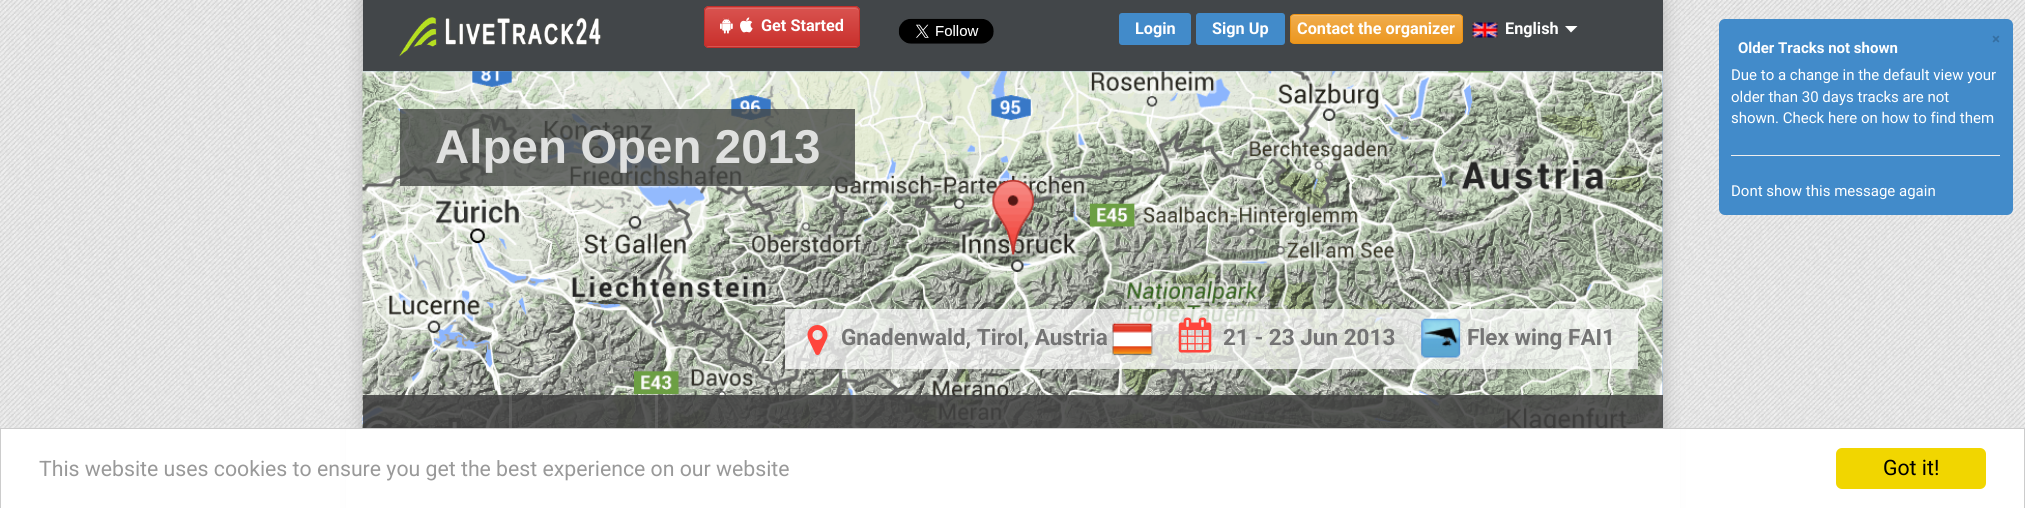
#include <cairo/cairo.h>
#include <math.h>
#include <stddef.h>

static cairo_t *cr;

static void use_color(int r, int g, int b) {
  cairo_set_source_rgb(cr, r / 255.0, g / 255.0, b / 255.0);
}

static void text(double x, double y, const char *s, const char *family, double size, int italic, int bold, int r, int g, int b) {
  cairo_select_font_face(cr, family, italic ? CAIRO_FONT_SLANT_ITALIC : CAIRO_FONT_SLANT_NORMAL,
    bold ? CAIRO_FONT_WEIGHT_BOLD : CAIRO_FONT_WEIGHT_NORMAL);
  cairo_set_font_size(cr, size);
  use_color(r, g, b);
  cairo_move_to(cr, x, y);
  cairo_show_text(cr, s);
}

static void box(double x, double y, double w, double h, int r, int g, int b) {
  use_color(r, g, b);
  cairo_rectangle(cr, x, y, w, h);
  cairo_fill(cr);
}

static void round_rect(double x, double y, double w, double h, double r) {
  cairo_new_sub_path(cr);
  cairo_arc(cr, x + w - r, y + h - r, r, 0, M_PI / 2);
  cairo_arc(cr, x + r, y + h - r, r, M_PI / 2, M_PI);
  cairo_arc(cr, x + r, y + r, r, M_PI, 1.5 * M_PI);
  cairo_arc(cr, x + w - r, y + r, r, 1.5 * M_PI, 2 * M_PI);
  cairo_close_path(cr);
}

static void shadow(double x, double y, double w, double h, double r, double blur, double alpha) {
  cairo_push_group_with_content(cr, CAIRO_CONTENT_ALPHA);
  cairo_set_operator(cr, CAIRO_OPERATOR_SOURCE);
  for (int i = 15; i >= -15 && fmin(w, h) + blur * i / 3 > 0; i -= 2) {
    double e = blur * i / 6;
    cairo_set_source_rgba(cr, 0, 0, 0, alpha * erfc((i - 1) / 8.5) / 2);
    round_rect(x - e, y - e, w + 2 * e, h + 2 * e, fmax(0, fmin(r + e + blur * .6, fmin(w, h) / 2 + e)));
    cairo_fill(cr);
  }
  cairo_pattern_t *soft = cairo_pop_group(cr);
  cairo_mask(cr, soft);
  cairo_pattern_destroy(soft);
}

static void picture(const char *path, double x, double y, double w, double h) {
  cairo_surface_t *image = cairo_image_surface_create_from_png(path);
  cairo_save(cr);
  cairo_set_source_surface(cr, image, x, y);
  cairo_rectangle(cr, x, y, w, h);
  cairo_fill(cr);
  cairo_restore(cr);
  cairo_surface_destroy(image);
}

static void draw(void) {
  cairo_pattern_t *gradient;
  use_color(255, 255, 255);
  cairo_paint(cr);
  picture("img_01.png", 0, 0, 2025, 428);
  use_color(180, 180, 180);
  shadow(363, 0, 1300, 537, 0, 9.5, 1);
  box(363, 0, 1300, 71, 66, 70, 73);
  picture("img_02.png", 399, 17, 203, 40);
  use_color(217, 83, 79);
  round_rect(704, 6, 156, 42, 5);
  cairo_fill(cr);
  cairo_save(cr);
  round_rect(704, 6, 156, 42, 5);
  cairo_clip(cr);
  gradient = cairo_pattern_create_linear(782, 7.5, 782, 46);
  cairo_pattern_add_color_stop_rgba(gradient, 0, 0.851, 0.325, 0.31, 1);
  cairo_pattern_add_color_stop_rgba(gradient, 1, 0.788, 0.188, 0.173, 1);
  cairo_set_source(cr, gradient);
  cairo_pattern_destroy(gradient);
  cairo_rectangle(cr, 704, 8, 156, 38);
  cairo_fill(cr);
  cairo_restore(cr);
  use_color(223, 108, 105);
  cairo_new_path(cr);
  cairo_move_to(cr, 709, 9);
  cairo_line_to(cr, 855, 9);
  cairo_curve_to(cr, 857, 9, 859, 10, 859, 12);
  cairo_line_to(cr, 858, 9);
  cairo_line_to(cr, 855, 8);
  cairo_line_to(cr, 709, 8);
  cairo_curve_to(cr, 707, 8, 705, 10, 705, 12);
  cairo_curve_to(cr, 705, 10, 707, 9, 709, 9);
  cairo_close_path(cr);
  cairo_fill(cr);
  round_rect(704.5, 6.5, 155, 41, 4.5);
  use_color(193, 46, 42);
  cairo_set_line_width(cr, 1);
  cairo_stroke(cr);
  picture("img_03.png", 720, 18, 13, 16);
  picture("img_04.png", 740, 17, 13, 16);
  picture("img_05.png", 898, 18, 96, 26);
  use_color(66, 139, 202);
  round_rect(1119, 13, 72, 32, 3);
  cairo_fill(cr);
  round_rect(1196, 13, 89, 32, 3);
  cairo_fill(cr);
  cairo_save(cr);
  round_rect(1290, 14, 173, 30, 4);
  cairo_clip(cr);
  gradient = cairo_pattern_create_linear(1376, 15, 1376, 43);
  cairo_pattern_add_color_stop_rgba(gradient, 0, 0.941, 0.678, 0.306, 1);
  cairo_pattern_add_color_stop_rgba(gradient, 1, 0.925, 0.592, 0.122, 1);
  cairo_set_source(cr, gradient);
  cairo_pattern_destroy(gradient);
  cairo_rectangle(cr, 1290, 15, 173, 28);
  cairo_fill(cr);
  cairo_restore(cr);
  use_color(242, 185, 104);
  cairo_new_path(cr);
  cairo_move_to(cr, 1294, 16);
  cairo_line_to(cr, 1459, 16);
  cairo_curve_to(cr, 1460, 16, 1461, 17, 1461, 19);
  cairo_line_to(cr, 1461, 18);
  cairo_curve_to(cr, 1461, 16, 1460, 15, 1458, 15);
  cairo_line_to(cr, 1294, 15);
  cairo_curve_to(cr, 1292, 15, 1291, 16, 1291, 18);
  cairo_line_to(cr, 1291, 19);
  cairo_curve_to(cr, 1291, 17, 1292, 16, 1294, 16);
  cairo_close_path(cr);
  cairo_fill(cr);
  round_rect(1290.5, 14.5, 172, 29, 3.5);
  use_color(235, 147, 22);
  cairo_stroke(cr);
  picture("img_06.png", 1472, 22, 26, 16);
  use_color(255, 255, 255);
  cairo_new_path(cr);
  cairo_move_to(cr, 1565, 26);
  cairo_line_to(cr, 1577.5, 26);
  cairo_line_to(cr, 1571, 32.5);
  cairo_close_path(cr);
  cairo_fill(cr);
  box(363, 71, 1300, 357, 135, 167, 202);
  picture("img_07.png", 362, 71, 1301, 357);
  cairo_set_source_rgba(cr, 0.278, 0.286, 0.275, 0.8);
  cairo_rectangle(cr, 400, 109, 455, 77);
  cairo_fill(cr);
  cairo_set_source_rgba(cr, 1, 1, 1, 0.73);
  cairo_rectangle(cr, 785, 309, 853, 60);
  cairo_fill(cr);
  picture("img_08.png", 807, 325, 21, 30);
  picture("img_09.png", 1112, 322, 41, 34);
  picture("img_10.png", 1178, 317, 34, 36);
  picture("img_11.png", 1421, 318, 40, 40);
  cairo_set_source_rgba(cr, 0.255, 0.255, 0.255, 0.87);
  cairo_rectangle(cr, 363, 395, 1300, 33);
  cairo_fill(cr);
  cairo_set_source_rgba(cr, 0.443, 0.443, 0.443, 0.46);
  cairo_rectangle(cr, 509, 395, 3, 33);
  cairo_fill(cr);
  cairo_rectangle(cr, 655, 395, 3, 33);
  cairo_fill(cr);
  use_color(66, 139, 202);
  round_rect(1719, 19, 294, 196, 6);
  cairo_fill(cr);
  box(1731, 155, 269, 1, 238, 238, 238);
  box(346, 429, 1334, 79, 255, 255, 255);
  cairo_rectangle(cr, 0.5, 428.5, 2024, 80);
  use_color(204, 204, 204);
  cairo_stroke(cr);
  use_color(241, 214, 0);
  round_rect(1836, 448, 150, 41, 6);
  cairo_fill(cr);
  text(761, 31, "Get Started", "Roboto", 16.25, 0, 1, 255, 255, 255);
  text(1135, 34, "Login", "Roboto", 16.25, 0, 1, 255, 255, 255);
  text(1212, 34, "Sign Up", "Roboto", 16.25, 0, 1, 255, 255, 255);
  text(1297, 34, "Contact the organizer", "Roboto", 16.25, 0, 1, 255, 255, 255);
  text(1505, 34, "English", "Roboto", 16.25, 0, 1, 255, 255, 255);
  text(435, 163, "Alpen Open 2013", "Liberation Sans", 47.5, 0, 1, 223, 224, 223);
  text(841, 345, "Gnadenwald, Tirol, Austria", "Roboto", 22.5, 0, 1, 116, 116, 116);
  text(1223, 345, "21 - 23 Jun 2013", "Roboto", 22.5, 0, 1, 116, 116, 116);
  text(1467, 345, "Flex wing FAI1", "Roboto", 22.5, 0, 1, 116, 116, 116);
  text(1992, 44, "×", "Roboto", 15, 0, 1, 53, 111, 162);
  text(1738, 53, "Older Tracks not shown", "Roboto", 15, 0, 1, 255, 255, 255);
  text(1731, 80, "Due to a change in the default view your", "Roboto", 15, 0, 0, 255, 255, 255);
  text(1731, 102, "older than 30 days tracks are not", "Roboto", 15, 0, 0, 255, 255, 255);
  text(1731, 123, "shown. Check here on how to find them", "Roboto", 15, 0, 0, 255, 255, 255);
  text(1731, 196, "Dont show this message again", "Roboto", 15, 0, 0, 255, 255, 255);
  text(39, 476, "This website uses cookies to ensure you get the best experience on our website", "Roboto", 21.25, 0, 0, 153, 153, 153);
  text(1883, 475, "Got it!", "Roboto", 21.25, 0, 0, 0, 0, 0);
}

int main(void) {
  cairo_surface_t *surface = cairo_image_surface_create(CAIRO_FORMAT_RGB24, 2025, 508);
  cr = cairo_create(surface);
  cairo_font_options_t *options = cairo_font_options_create();
  cairo_font_options_set_hint_metrics(options, CAIRO_HINT_METRICS_OFF);
  cairo_font_options_set_hint_style(options, CAIRO_HINT_STYLE_NONE);
  cairo_set_font_options(cr, options);
  cairo_set_miter_limit(cr, 4);
  draw();
  cairo_surface_write_to_png(surface, "out.png");
  cairo_font_options_destroy(options);
  cairo_destroy(cr);
  cairo_surface_destroy(surface);
  return 0;
}
